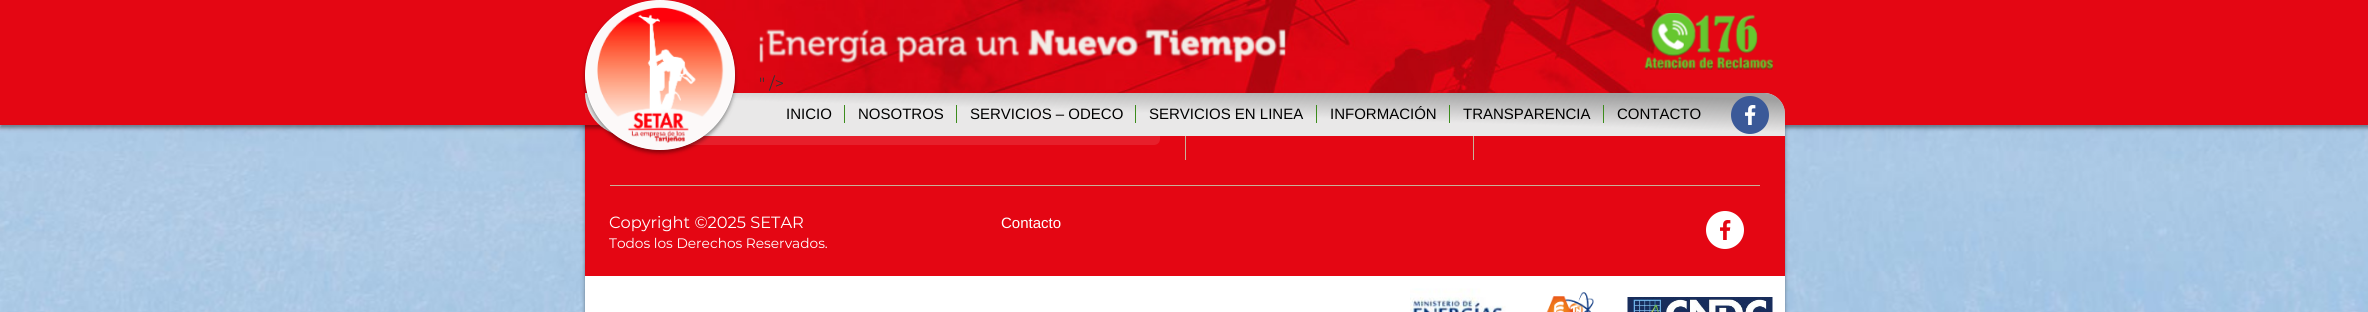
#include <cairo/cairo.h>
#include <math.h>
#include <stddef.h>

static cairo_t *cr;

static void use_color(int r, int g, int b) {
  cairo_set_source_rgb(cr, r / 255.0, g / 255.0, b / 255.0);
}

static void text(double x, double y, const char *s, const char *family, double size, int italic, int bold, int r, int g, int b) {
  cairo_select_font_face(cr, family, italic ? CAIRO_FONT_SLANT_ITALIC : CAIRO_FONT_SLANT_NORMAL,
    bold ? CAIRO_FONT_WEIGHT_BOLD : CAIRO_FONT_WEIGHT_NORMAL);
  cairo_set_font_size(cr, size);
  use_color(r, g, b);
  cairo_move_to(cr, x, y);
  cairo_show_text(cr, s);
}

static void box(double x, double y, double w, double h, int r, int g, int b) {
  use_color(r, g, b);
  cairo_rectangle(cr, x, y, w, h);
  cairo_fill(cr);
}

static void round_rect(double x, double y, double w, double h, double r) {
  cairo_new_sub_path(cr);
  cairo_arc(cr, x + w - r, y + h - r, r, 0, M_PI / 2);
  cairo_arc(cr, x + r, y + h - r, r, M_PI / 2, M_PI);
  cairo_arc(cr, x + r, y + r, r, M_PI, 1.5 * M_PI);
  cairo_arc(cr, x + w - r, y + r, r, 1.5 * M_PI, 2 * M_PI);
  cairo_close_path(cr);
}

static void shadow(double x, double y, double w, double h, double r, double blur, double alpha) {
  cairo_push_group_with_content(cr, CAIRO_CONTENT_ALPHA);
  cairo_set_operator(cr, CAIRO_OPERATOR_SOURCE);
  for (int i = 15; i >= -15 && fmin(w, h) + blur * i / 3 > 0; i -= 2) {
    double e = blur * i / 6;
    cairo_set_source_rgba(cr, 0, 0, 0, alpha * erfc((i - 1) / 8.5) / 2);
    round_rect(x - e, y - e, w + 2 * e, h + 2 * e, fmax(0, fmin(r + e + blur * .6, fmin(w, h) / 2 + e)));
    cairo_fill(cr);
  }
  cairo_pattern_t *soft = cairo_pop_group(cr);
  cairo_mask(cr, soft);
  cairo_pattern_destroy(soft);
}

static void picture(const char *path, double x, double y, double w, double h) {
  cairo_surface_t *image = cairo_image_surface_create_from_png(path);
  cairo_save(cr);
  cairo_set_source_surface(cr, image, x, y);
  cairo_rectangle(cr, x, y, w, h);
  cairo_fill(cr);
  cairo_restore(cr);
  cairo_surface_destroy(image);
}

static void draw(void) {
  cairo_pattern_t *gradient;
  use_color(255, 255, 255);
  cairo_paint(cr);
  picture("img_01.png", 0, 125, 2368, 187);
  use_color(0, 0, 0);
  shadow(585, -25, 1200, 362, 19, 2, 0.4);
  box(585, 125, 1200, 151, 228, 6, 19);
  use_color(231, 31, 43);
  round_rect(635, 115, 525, 30, 6);
  cairo_fill(cr);
  use_color(0, 0, 0);
  shadow(0, 3, 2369, 125, 0, 2, 0.4);
  box(0, 0, 2368, 125, 228, 6, 19);
  picture("img_02.png", 692, 0, 995, 93);
  use_color(233, 232, 232);
  cairo_new_path(cr);
  cairo_move_to(cr, 585, 93);
  cairo_line_to(cr, 1764, 93);
  cairo_curve_to(cr, 1775.5, 93, 1785, 102.5, 1785, 114);
  cairo_line_to(cr, 1785, 136);
  cairo_line_to(cr, 628, 136);
  cairo_curve_to(cr, 604.5, 136, 585, 116.5, 585, 93);
  cairo_close_path(cr);
  cairo_fill(cr);
  gradient = cairo_pattern_create_linear(1186, 82, 1184, 147);
  cairo_pattern_add_color_stop_rgba(gradient, 0, 0.627, 0.627, 0.627, 1);
  cairo_pattern_add_color_stop_rgba(gradient, 0.5, 0.627, 0.627, 0.627, 0);
  cairo_set_source(cr, gradient);
  cairo_pattern_destroy(gradient);
  cairo_new_path(cr);
  cairo_move_to(cr, 585, 93);
  cairo_line_to(cr, 1764, 93);
  cairo_curve_to(cr, 1775.5, 93, 1785, 102.5, 1785, 114);
  cairo_line_to(cr, 1785, 136);
  cairo_line_to(cr, 628, 136);
  cairo_curve_to(cr, 604.5, 136, 585, 116.5, 585, 93);
  cairo_close_path(cr);
  cairo_fill(cr);
  use_color(0, 0, 0);
  shadow(585, 3, 150, 150, 75, 2, 0.4);
  use_color(255, 255, 255);
  cairo_arc(cr, 660, 75, 75, 0, 2 * M_PI);
  cairo_fill(cr);
  picture("img_03.png", 585, 0, 150, 150);
  picture("img_04.png", 1644, 13, 129, 57);
  picture("img_05.png", 759, 29, 527, 35);
  box(844, 105, 1, 18, 60, 140, 28);
  box(956, 105, 1, 18, 60, 140, 28);
  box(1135, 105, 1, 18, 60, 140, 28);
  box(1316, 105, 1, 18, 60, 140, 28);
  box(1449, 105, 1, 18, 60, 140, 28);
  box(1603, 105, 1, 18, 60, 140, 28);
  use_color(59, 89, 152);
  cairo_arc(cr, 1750, 115, 19, 0, 2 * M_PI);
  cairo_fill(cr);
  picture("img_06.png", 1745, 105, 11, 20);
  box(1185, 136, 1, 24, 200, 177, 153);
  box(1473, 136, 1, 24, 200, 177, 153);
  box(610, 185, 1150, 1, 200, 177, 153);
  use_color(255, 255, 255);
  cairo_arc(cr, 1725, 230, 19, 0, 2 * M_PI);
  cairo_fill(cr);
  picture("img_07.png", 1720, 220, 11, 20);
  box(585, 276, 1200, 36, 255, 255, 255);
  picture("img_08.png", 1410, 288, 96, 24);
  picture("img_09.png", 1546, 292, 48, 20);
  picture("img_10.png", 1627, 297, 146, 15);
  text(759, 89, "\" />", "Montserrat", 16.25, 0, 0, 51, 51, 51);
  text(786, 119, "INICIO", "Liberation Sans", 15, 0, 0, 0, 0, 0);
  text(858, 119, "NOSOTROS", "Liberation Sans", 15, 0, 0, 0, 0, 0);
  text(970, 119, "SERVICIOS – ODECO", "Liberation Sans", 15, 0, 0, 0, 0, 0);
  text(1149, 119, "SERVICIOS EN LINEA", "Liberation Sans", 15, 0, 0, 0, 0, 0);
  text(1330, 119, "INFORMACIÓN", "Liberation Sans", 15, 0, 0, 0, 0, 0);
  text(1463, 119, "TRANSPARENCIA", "Liberation Sans", 15, 0, 0, 0, 0, 0);
  text(1617, 119, "CONTACTO", "Liberation Sans", 15, 0, 0, 0, 0, 0);
  text(609, 228, "Copyright ©2025 SETAR", "Montserrat", 16.25, 0, 0, 255, 255, 255);
  text(609, 248, "Todos los Derechos Reservados.", "Montserrat", 13.75, 0, 0, 255, 255, 255);
  text(1001, 228, "Contacto", "Liberation Sans", 15, 0, 0, 255, 255, 255);
}

int main(void) {
  cairo_surface_t *surface = cairo_image_surface_create(CAIRO_FORMAT_RGB24, 2368, 312);
  cr = cairo_create(surface);
  cairo_font_options_t *options = cairo_font_options_create();
  cairo_font_options_set_hint_metrics(options, CAIRO_HINT_METRICS_OFF);
  cairo_font_options_set_hint_style(options, CAIRO_HINT_STYLE_NONE);
  cairo_set_font_options(cr, options);
  cairo_set_miter_limit(cr, 4);
  draw();
  cairo_surface_write_to_png(surface, "out.png");
  cairo_font_options_destroy(options);
  cairo_destroy(cr);
  cairo_surface_destroy(surface);
  return 0;
}
